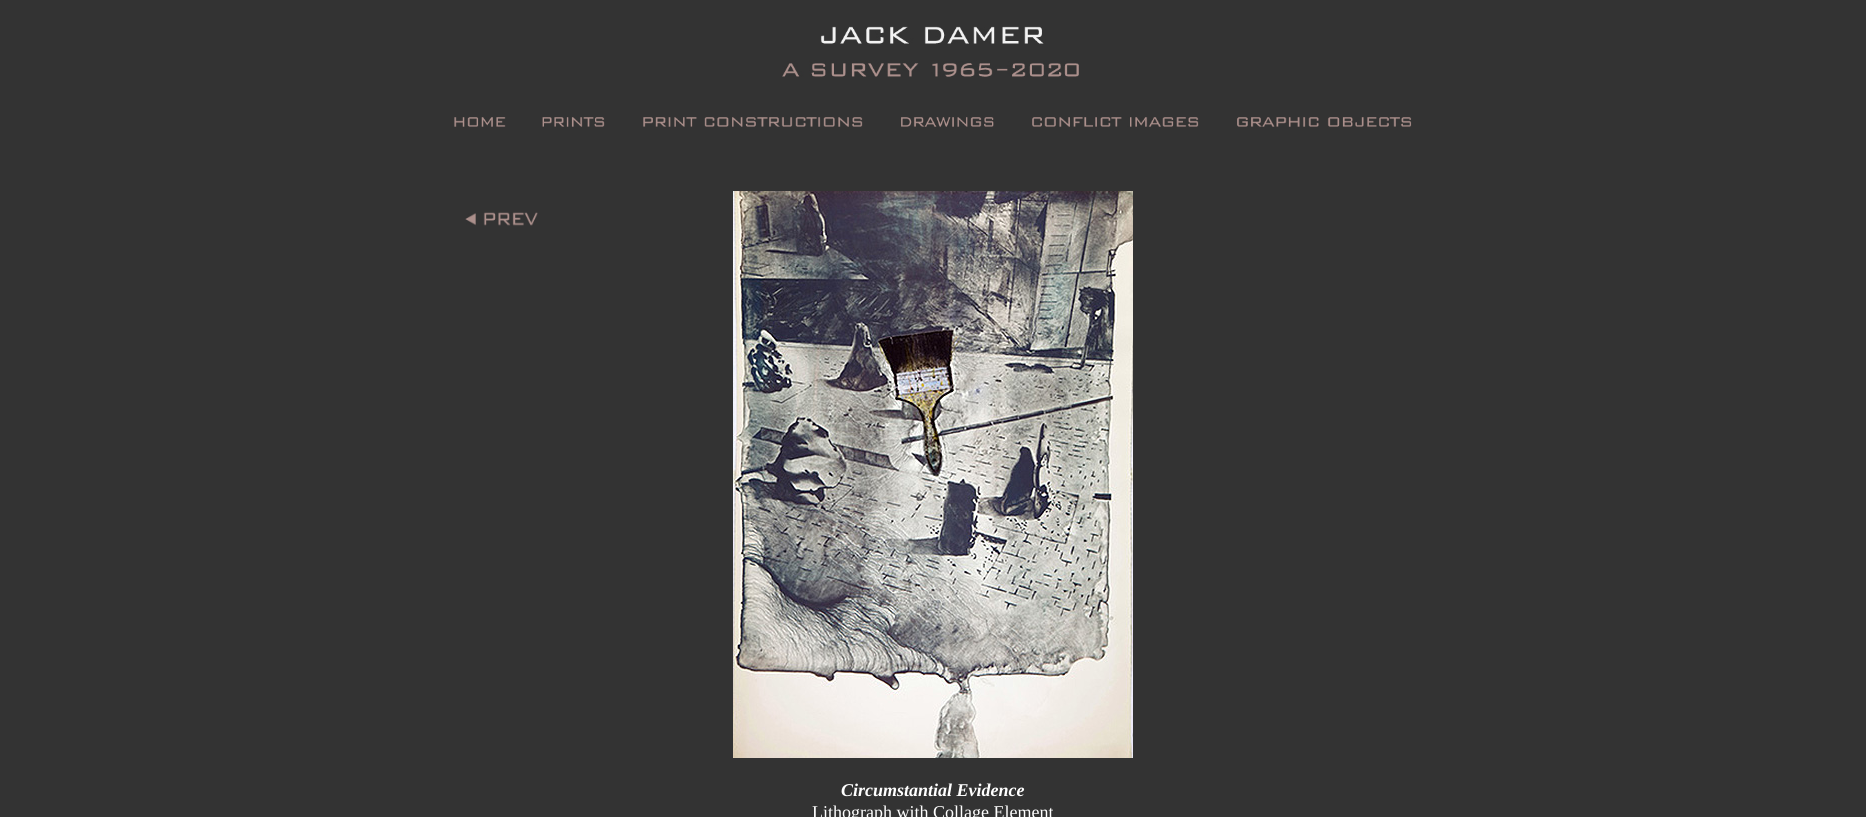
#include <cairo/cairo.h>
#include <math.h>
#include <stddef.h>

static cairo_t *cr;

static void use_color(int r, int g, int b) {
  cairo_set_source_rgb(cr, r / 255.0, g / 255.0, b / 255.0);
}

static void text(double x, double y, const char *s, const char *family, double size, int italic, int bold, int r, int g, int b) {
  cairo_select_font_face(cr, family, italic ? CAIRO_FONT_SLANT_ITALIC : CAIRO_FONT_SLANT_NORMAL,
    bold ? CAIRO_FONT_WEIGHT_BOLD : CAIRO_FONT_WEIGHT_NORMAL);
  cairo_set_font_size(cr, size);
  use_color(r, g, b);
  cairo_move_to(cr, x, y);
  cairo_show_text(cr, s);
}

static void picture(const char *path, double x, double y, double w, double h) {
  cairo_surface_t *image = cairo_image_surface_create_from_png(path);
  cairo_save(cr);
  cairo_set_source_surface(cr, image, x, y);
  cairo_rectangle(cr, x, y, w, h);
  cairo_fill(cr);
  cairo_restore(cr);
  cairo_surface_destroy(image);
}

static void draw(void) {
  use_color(51, 51, 51);
  cairo_paint(cr);
  picture("img_01.png", 782, 26, 297, 51);
  picture("img_02.png", 454, 117, 52, 10);
  picture("img_03.png", 542, 117, 63, 10);
  picture("img_04.png", 643, 117, 220, 10);
  picture("img_05.png", 901, 117, 93, 10);
  picture("img_06.png", 1032, 117, 167, 10);
  picture("img_07.png", 1237, 117, 175, 10);
  picture("img_08.png", 465, 212, 73, 14);
  picture("img_09.png", 733, 191, 400, 567);
  text(841, 796, "Circumstantial Evidence", "Liberation Serif", 18, 1, 1, 255, 255, 255);
  text(812, 818, "Lithograph with Collage Element", "Liberation Serif", 18, 0, 0, 255, 255, 255);
}

int main(void) {
  cairo_surface_t *surface = cairo_image_surface_create(CAIRO_FORMAT_RGB24, 1866, 817);
  cr = cairo_create(surface);
  cairo_font_options_t *options = cairo_font_options_create();
  cairo_font_options_set_hint_metrics(options, CAIRO_HINT_METRICS_OFF);
  cairo_font_options_set_hint_style(options, CAIRO_HINT_STYLE_NONE);
  cairo_set_font_options(cr, options);
  cairo_set_miter_limit(cr, 4);
  draw();
  cairo_surface_write_to_png(surface, "out.png");
  cairo_font_options_destroy(options);
  cairo_destroy(cr);
  cairo_surface_destroy(surface);
  return 0;
}
